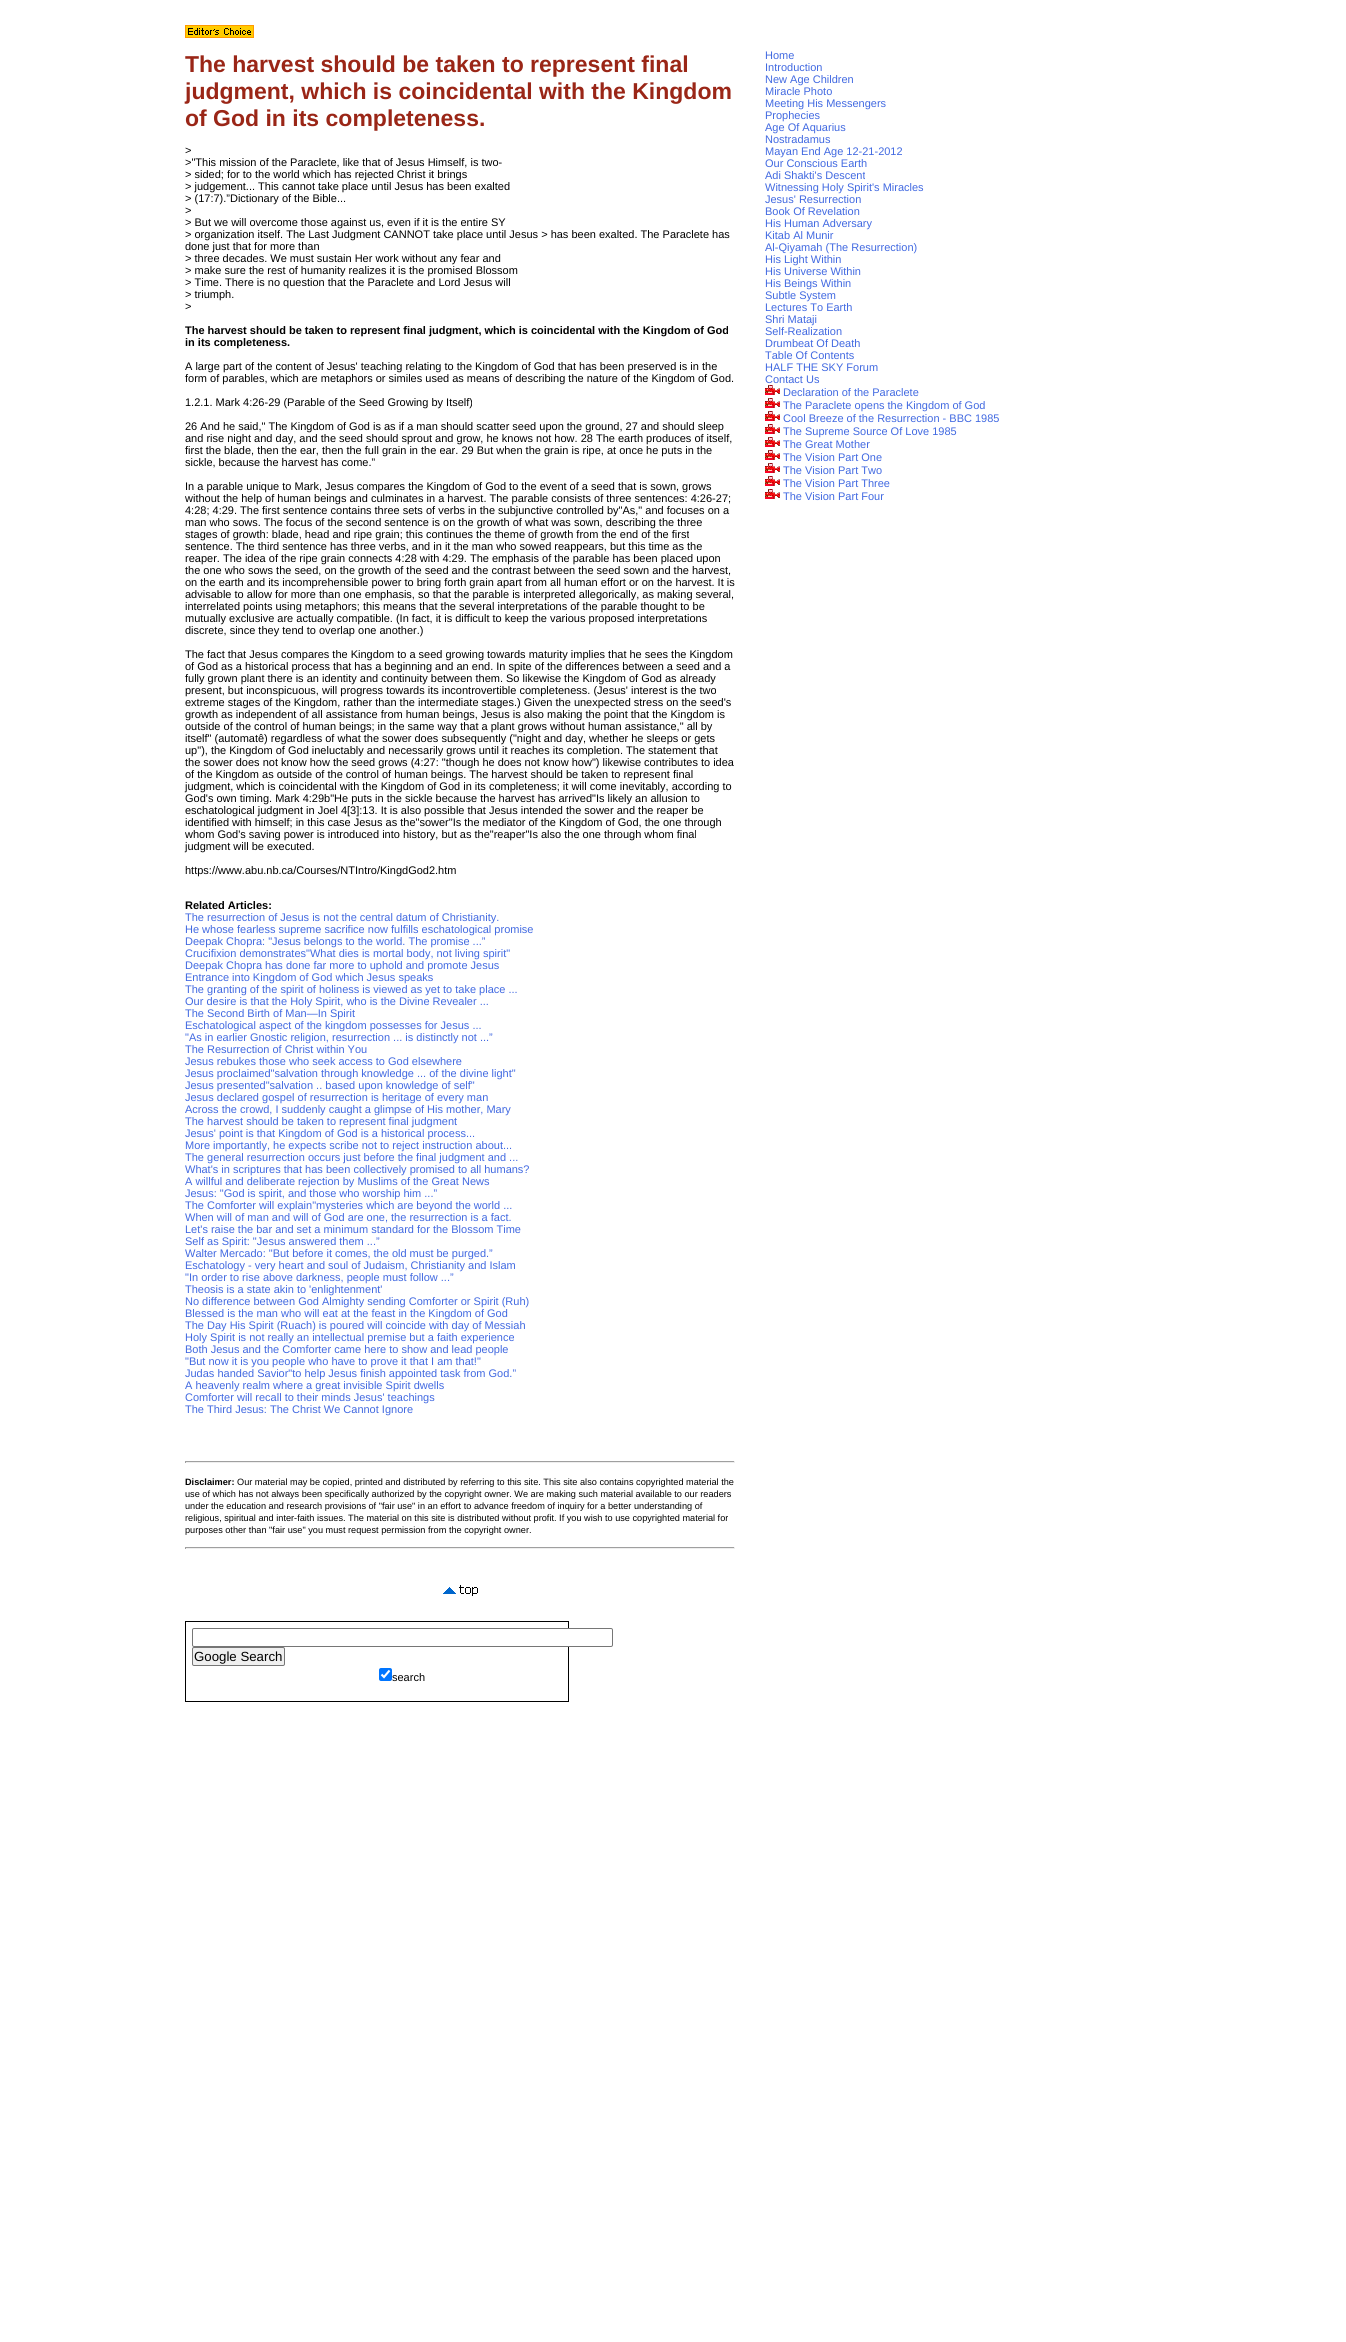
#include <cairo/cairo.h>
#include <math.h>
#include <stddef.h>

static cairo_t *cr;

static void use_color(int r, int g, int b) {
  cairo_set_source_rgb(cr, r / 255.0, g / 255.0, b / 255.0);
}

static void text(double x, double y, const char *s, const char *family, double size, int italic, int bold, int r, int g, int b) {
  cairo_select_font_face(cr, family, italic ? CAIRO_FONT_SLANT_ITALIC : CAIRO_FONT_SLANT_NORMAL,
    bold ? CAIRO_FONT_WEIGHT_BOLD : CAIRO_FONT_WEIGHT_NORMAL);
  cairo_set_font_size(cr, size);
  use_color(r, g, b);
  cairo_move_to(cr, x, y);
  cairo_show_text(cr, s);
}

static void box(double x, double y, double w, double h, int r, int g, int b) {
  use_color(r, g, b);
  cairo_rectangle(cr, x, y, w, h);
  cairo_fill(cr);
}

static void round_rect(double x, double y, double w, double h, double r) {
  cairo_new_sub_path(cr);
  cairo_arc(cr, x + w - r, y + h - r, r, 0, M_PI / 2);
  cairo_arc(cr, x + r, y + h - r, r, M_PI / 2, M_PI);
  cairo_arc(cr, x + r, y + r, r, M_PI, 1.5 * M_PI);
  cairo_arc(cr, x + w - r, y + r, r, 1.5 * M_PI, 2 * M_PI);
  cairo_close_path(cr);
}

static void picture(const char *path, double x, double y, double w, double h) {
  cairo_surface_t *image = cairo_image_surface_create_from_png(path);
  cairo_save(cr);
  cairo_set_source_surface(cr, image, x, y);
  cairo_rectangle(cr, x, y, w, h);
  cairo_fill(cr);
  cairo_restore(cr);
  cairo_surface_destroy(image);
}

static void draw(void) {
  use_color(255, 255, 255);
  cairo_paint(cr);
  picture("img_01.png", 185, 25, 69, 13);
  box(185, 1461, 550, 1, 159, 159, 159);
  box(734, 1461, 1, 2, 238, 238, 238);
  box(185, 1462, 550, 1, 238, 238, 238);
  box(185, 1461, 1, 2, 159, 159, 159);
  box(185, 1547, 550, 1, 159, 159, 159);
  box(734, 1547, 1, 2, 238, 238, 238);
  box(185, 1548, 550, 1, 238, 238, 238);
  box(185, 1547, 1, 2, 159, 159, 159);
  picture("img_02.png", 443, 1585, 35, 11);
  cairo_rectangle(cr, 185.5, 1621.5, 383, 80);
  use_color(0, 0, 0);
  cairo_set_line_width(cr, 1);
  cairo_stroke(cr);
  use_color(255, 255, 255);
  round_rect(192.5, 1628.5, 420, 18, 1.5);
  cairo_fill_preserve(cr);
  use_color(118, 118, 118);
  cairo_stroke(cr);
  use_color(239, 239, 239);
  round_rect(192.5, 1647.5, 92, 18, 1.5);
  cairo_fill_preserve(cr);
  use_color(118, 118, 118);
  cairo_stroke(cr);
  use_color(0, 117, 255);
  round_rect(379, 1668, 13, 13, 2);
  cairo_fill(cr);
  cairo_new_path(cr);
  cairo_move_to(cr, 381.5, 1674.5);
  cairo_line_to(cr, 384, 1677);
  cairo_line_to(cr, 389.5, 1670.5);
  use_color(255, 255, 255);
  cairo_set_line_width(cr, 2.1);
  cairo_stroke(cr);
  picture("img_03.png", 765, 385, 15, 10);
  picture("img_03.png", 765, 398, 15, 10);
  picture("img_03.png", 765, 411, 15, 10);
  picture("img_03.png", 765, 424, 15, 10);
  picture("img_03.png", 765, 437, 15, 10);
  picture("img_03.png", 765, 450, 15, 10);
  picture("img_03.png", 765, 463, 15, 10);
  picture("img_03.png", 765, 476, 15, 10);
  picture("img_03.png", 765, 489, 15, 10);
  text(185, 72, "The harvest should be taken to represent final", "Liberation Sans", 23, 0, 1, 154, 38, 23);
  text(185, 99, "judgment, which is coincidental with the Kingdom", "Liberation Sans", 23, 0, 1, 154, 38, 23);
  text(185, 126, "of God in its completeness.", "Liberation Sans", 23, 0, 1, 154, 38, 23);
  text(185, 154, ">", "Liberation Sans", 11, 0, 0, 0, 0, 0);
  text(185, 166, ">\"This mission of the Paraclete, like that of Jesus Himself, is two-", "Liberation Sans", 11, 0, 0, 0, 0, 0);
  text(185, 178, "> sided; for to the world which has rejected Christ it brings", "Liberation Sans", 11, 0, 0, 0, 0, 0);
  text(185, 190, "> judgement... This cannot take place until Jesus has been exalted", "Liberation Sans", 11, 0, 0, 0, 0, 0);
  text(185, 202, "> (17:7).”Dictionary of the Bible...", "Liberation Sans", 11, 0, 0, 0, 0, 0);
  text(185, 214, ">", "Liberation Sans", 11, 0, 0, 0, 0, 0);
  text(185, 226, "> But we will overcome those against us, even if it is the entire SY", "Liberation Sans", 11, 0, 0, 0, 0, 0);
  text(185, 238, "> organization itself. The Last Judgment CANNOT take place until Jesus > has been exalted. The Paraclete has", "Liberation Sans", 11, 0, 0, 0, 0, 0);
  text(185, 250, "done just that for more than", "Liberation Sans", 11, 0, 0, 0, 0, 0);
  text(185, 262, "> three decades. We must sustain Her work without any fear and", "Liberation Sans", 11, 0, 0, 0, 0, 0);
  text(185, 274, "> make sure the rest of humanity realizes it is the promised Blossom", "Liberation Sans", 11, 0, 0, 0, 0, 0);
  text(185, 286, "> Time. There is no question that the Paraclete and Lord Jesus will", "Liberation Sans", 11, 0, 0, 0, 0, 0);
  text(185, 298, "> triumph.", "Liberation Sans", 11, 0, 0, 0, 0, 0);
  text(185, 310, ">", "Liberation Sans", 11, 0, 0, 0, 0, 0);
  text(185, 334, "The harvest should be taken to represent final judgment, which is coincidental with the Kingdom of God", "Liberation Sans", 11, 0, 1, 0, 0, 0);
  text(185, 346, "in its completeness.", "Liberation Sans", 11, 0, 1, 0, 0, 0);
  text(185, 370, "A large part of the content of Jesus' teaching relating to the Kingdom of God that has been preserved is in the", "Liberation Sans", 11, 0, 0, 0, 0, 0);
  text(185, 382, "form of parables, which are metaphors or similes used as means of describing the nature of the Kingdom of God.", "Liberation Sans", 11, 0, 0, 0, 0, 0);
  text(185, 406, "1.2.1. Mark 4:26-29 (Parable of the Seed Growing by Itself)", "Liberation Sans", 11, 0, 0, 0, 0, 0);
  text(185, 430, "26 And he said,\" The Kingdom of God is as if a man should scatter seed upon the ground, 27 and should sleep", "Liberation Sans", 11, 0, 0, 0, 0, 0);
  text(185, 442, "and rise night and day, and the seed should sprout and grow, he knows not how. 28 The earth produces of itself,", "Liberation Sans", 11, 0, 0, 0, 0, 0);
  text(185, 454, "first the blade, then the ear, then the full grain in the ear. 29 But when the grain is ripe, at once he puts in the", "Liberation Sans", 11, 0, 0, 0, 0, 0);
  text(185, 466, "sickle, because the harvest has come.”", "Liberation Sans", 11, 0, 0, 0, 0, 0);
  text(185, 490, "In a parable unique to Mark, Jesus compares the Kingdom of God to the event of a seed that is sown, grows", "Liberation Sans", 11, 0, 0, 0, 0, 0);
  text(185, 502, "without the help of human beings and culminates in a harvest. The parable consists of three sentences: 4:26-27;", "Liberation Sans", 11, 0, 0, 0, 0, 0);
  text(185, 514, "4:28; 4:29. The first sentence contains three sets of verbs in the subjunctive controlled by\"As,\" and focuses on a", "Liberation Sans", 11, 0, 0, 0, 0, 0);
  text(185, 526, "man who sows. The focus of the second sentence is on the growth of what was sown, describing the three", "Liberation Sans", 11, 0, 0, 0, 0, 0);
  text(185, 538, "stages of growth: blade, head and ripe grain; this continues the theme of growth from the end of the first", "Liberation Sans", 11, 0, 0, 0, 0, 0);
  text(185, 550, "sentence. The third sentence has three verbs, and in it the man who sowed reappears, but this time as the", "Liberation Sans", 11, 0, 0, 0, 0, 0);
  text(185, 562, "reaper. The idea of the ripe grain connects 4:28 with 4:29. The emphasis of the parable has been placed upon", "Liberation Sans", 11, 0, 0, 0, 0, 0);
  text(185, 574, "the one who sows the seed, on the growth of the seed and the contrast between the seed sown and the harvest,", "Liberation Sans", 11, 0, 0, 0, 0, 0);
  text(185, 586, "on the earth and its incomprehensible power to bring forth grain apart from all human effort or on the harvest. It is", "Liberation Sans", 11, 0, 0, 0, 0, 0);
  text(185, 598, "advisable to allow for more than one emphasis, so that the parable is interpreted allegorically, as making several,", "Liberation Sans", 11, 0, 0, 0, 0, 0);
  text(185, 610, "interrelated points using metaphors; this means that the several interpretations of the parable thought to be", "Liberation Sans", 11, 0, 0, 0, 0, 0);
  text(185, 622, "mutually exclusive are actually compatible. (In fact, it is difficult to keep the various proposed interpretations", "Liberation Sans", 11, 0, 0, 0, 0, 0);
  text(185, 634, "discrete, since they tend to overlap one another.)", "Liberation Sans", 11, 0, 0, 0, 0, 0);
  text(185, 658, "The fact that Jesus compares the Kingdom to a seed growing towards maturity implies that he sees the Kingdom", "Liberation Sans", 11, 0, 0, 0, 0, 0);
  text(185, 670, "of God as a historical process that has a beginning and an end. In spite of the differences between a seed and a", "Liberation Sans", 11, 0, 0, 0, 0, 0);
  text(185, 682, "fully grown plant there is an identity and continuity between them. So likewise the Kingdom of God as already", "Liberation Sans", 11, 0, 0, 0, 0, 0);
  text(185, 694, "present, but inconspicuous, will progress towards its incontrovertible completeness. (Jesus' interest is the two", "Liberation Sans", 11, 0, 0, 0, 0, 0);
  text(185, 706, "extreme stages of the Kingdom, rather than the intermediate stages.) Given the unexpected stress on the seed's", "Liberation Sans", 11, 0, 0, 0, 0, 0);
  text(185, 718, "growth as independent of all assistance from human beings, Jesus is also making the point that the Kingdom is", "Liberation Sans", 11, 0, 0, 0, 0, 0);
  text(185, 730, "outside of the control of human beings; in the same way that a plant grows without human assistance,\" all by", "Liberation Sans", 11, 0, 0, 0, 0, 0);
  text(185, 742, "itself\" (automatê) regardless of what the sower does subsequently (\"night and day, whether he sleeps or gets", "Liberation Sans", 11, 0, 0, 0, 0, 0);
  text(185, 754, "up\"), the Kingdom of God ineluctably and necessarily grows until it reaches its completion. The statement that", "Liberation Sans", 11, 0, 0, 0, 0, 0);
  text(185, 766, "the sower does not know how the seed grows (4:27: \"though he does not know how\") likewise contributes to idea", "Liberation Sans", 11, 0, 0, 0, 0, 0);
  text(185, 778, "of the Kingdom as outside of the control of human beings. The harvest should be taken to represent final", "Liberation Sans", 11, 0, 0, 0, 0, 0);
  text(185, 790, "judgment, which is coincidental with the Kingdom of God in its completeness; it will come inevitably, according to", "Liberation Sans", 11, 0, 0, 0, 0, 0);
  text(185, 802, "God's own timing. Mark 4:29b\"He puts in the sickle because the harvest has arrived\"Is likely an allusion to", "Liberation Sans", 11, 0, 0, 0, 0, 0);
  text(185, 814, "eschatological judgment in Joel 4[3]:13. It is also possible that Jesus intended the sower and the reaper be", "Liberation Sans", 11, 0, 0, 0, 0, 0);
  text(185, 826, "identified with himself; in this case Jesus as the\"sower\"Is the mediator of the Kingdom of God, the one through", "Liberation Sans", 11, 0, 0, 0, 0, 0);
  text(185, 838, "whom God's saving power is introduced into history, but as the\"reaper\"Is also the one through whom final", "Liberation Sans", 11, 0, 0, 0, 0, 0);
  text(185, 850, "judgment will be executed.", "Liberation Sans", 11, 0, 0, 0, 0, 0);
  text(185, 874, "https://www.abu.nb.ca/Courses/NTIntro/KingdGod2.htm", "Liberation Sans", 11, 0, 0, 0, 0, 0);
  text(185, 909, "Related Articles:", "Liberation Sans", 11, 0, 1, 0, 0, 0);
  text(185, 921, "The resurrection of Jesus is not the central datum of Christianity.", "Liberation Sans", 11, 0, 0, 65, 105, 225);
  text(185, 933, "He whose fearless supreme sacrifice now fulfills eschatological promise", "Liberation Sans", 11, 0, 0, 65, 105, 225);
  text(185, 945, "Deepak Chopra: \"Jesus belongs to the world. The promise ...”", "Liberation Sans", 11, 0, 0, 65, 105, 225);
  text(185, 957, "Crucifixion demonstrates\"What dies is mortal body, not living spirit\"", "Liberation Sans", 11, 0, 0, 65, 105, 225);
  text(185, 969, "Deepak Chopra has done far more to uphold and promote Jesus", "Liberation Sans", 11, 0, 0, 65, 105, 225);
  text(185, 981, "Entrance into Kingdom of God which Jesus speaks", "Liberation Sans", 11, 0, 0, 65, 105, 225);
  text(185, 993, "The granting of the spirit of holiness is viewed as yet to take place ...", "Liberation Sans", 11, 0, 0, 65, 105, 225);
  text(185, 1005, "Our desire is that the Holy Spirit, who is the Divine Revealer ...", "Liberation Sans", 11, 0, 0, 65, 105, 225);
  text(185, 1017, "The Second Birth of Man—In Spirit", "Liberation Sans", 11, 0, 0, 65, 105, 225);
  text(185, 1029, "Eschatological aspect of the kingdom possesses for Jesus ...", "Liberation Sans", 11, 0, 0, 65, 105, 225);
  text(185, 1041, "\"As in earlier Gnostic religion, resurrection ... is distinctly not ...”", "Liberation Sans", 11, 0, 0, 65, 105, 225);
  text(185, 1053, "The Resurrection of Christ within You", "Liberation Sans", 11, 0, 0, 65, 105, 225);
  text(185, 1065, "Jesus rebukes those who seek access to God elsewhere", "Liberation Sans", 11, 0, 0, 65, 105, 225);
  text(185, 1077, "Jesus proclaimed\"salvation through knowledge ... of the divine light\"", "Liberation Sans", 11, 0, 0, 65, 105, 225);
  text(185, 1089, "Jesus presented\"salvation .. based upon knowledge of self\"", "Liberation Sans", 11, 0, 0, 65, 105, 225);
  text(185, 1101, "Jesus declared gospel of resurrection is heritage of every man", "Liberation Sans", 11, 0, 0, 65, 105, 225);
  text(185, 1113, "Across the crowd, I suddenly caught a glimpse of His mother, Mary", "Liberation Sans", 11, 0, 0, 65, 105, 225);
  text(185, 1125, "The harvest should be taken to represent final judgment", "Liberation Sans", 11, 0, 0, 65, 105, 225);
  text(185, 1137, "Jesus' point is that Kingdom of God is a historical process...", "Liberation Sans", 11, 0, 0, 65, 105, 225);
  text(185, 1149, "More importantly, he expects scribe not to reject instruction about...", "Liberation Sans", 11, 0, 0, 65, 105, 225);
  text(185, 1161, "The general resurrection occurs just before the final judgment and ...", "Liberation Sans", 11, 0, 0, 65, 105, 225);
  text(185, 1173, "What's in scriptures that has been collectively promised to all humans?", "Liberation Sans", 11, 0, 0, 65, 105, 225);
  text(185, 1185, "A willful and deliberate rejection by Muslims of the Great News", "Liberation Sans", 11, 0, 0, 65, 105, 225);
  text(185, 1197, "Jesus: \"God is spirit, and those who worship him ...”", "Liberation Sans", 11, 0, 0, 65, 105, 225);
  text(185, 1209, "The Comforter will explain\"mysteries which are beyond the world ...", "Liberation Sans", 11, 0, 0, 65, 105, 225);
  text(185, 1221, "When will of man and will of God are one, the resurrection is a fact.", "Liberation Sans", 11, 0, 0, 65, 105, 225);
  text(185, 1233, "Let's raise the bar and set a minimum standard for the Blossom Time", "Liberation Sans", 11, 0, 0, 65, 105, 225);
  text(185, 1245, "Self as Spirit: \"Jesus answered them ...”", "Liberation Sans", 11, 0, 0, 65, 105, 225);
  text(185, 1257, "Walter Mercado: \"But before it comes, the old must be purged.”", "Liberation Sans", 11, 0, 0, 65, 105, 225);
  text(185, 1269, "Eschatology - very heart and soul of Judaism, Christianity and Islam", "Liberation Sans", 11, 0, 0, 65, 105, 225);
  text(185, 1281, "\"In order to rise above darkness, people must follow ...”", "Liberation Sans", 11, 0, 0, 65, 105, 225);
  text(185, 1293, "Theosis is a state akin to 'enlightenment'", "Liberation Sans", 11, 0, 0, 65, 105, 225);
  text(185, 1305, "No difference between God Almighty sending Comforter or Spirit (Ruh)", "Liberation Sans", 11, 0, 0, 65, 105, 225);
  text(185, 1317, "Blessed is the man who will eat at the feast in the Kingdom of God", "Liberation Sans", 11, 0, 0, 65, 105, 225);
  text(185, 1329, "The Day His Spirit (Ruach) is poured will coincide with day of Messiah", "Liberation Sans", 11, 0, 0, 65, 105, 225);
  text(185, 1341, "Holy Spirit is not really an intellectual premise but a faith experience", "Liberation Sans", 11, 0, 0, 65, 105, 225);
  text(185, 1353, "Both Jesus and the Comforter came here to show and lead people", "Liberation Sans", 11, 0, 0, 65, 105, 225);
  text(185, 1365, "\"But now it is you people who have to prove it that I am that!\"", "Liberation Sans", 11, 0, 0, 65, 105, 225);
  text(185, 1377, "Judas handed Savior\"to help Jesus finish appointed task from God.”", "Liberation Sans", 11, 0, 0, 65, 105, 225);
  text(185, 1389, "A heavenly realm where a great invisible Spirit dwells", "Liberation Sans", 11, 0, 0, 65, 105, 225);
  text(185, 1401, "Comforter will recall to their minds Jesus' teachings", "Liberation Sans", 11, 0, 0, 65, 105, 225);
  text(185, 1413, "The Third Jesus: The Christ We Cannot Ignore", "Liberation Sans", 11, 0, 0, 65, 105, 225);
  text(185, 1485, "Disclaimer:", "Liberation Sans", 9.17, 0, 1, 0, 0, 0);
  text(237, 1485, "Our material may be copied, printed and distributed by referring to this site. This site also contains copyrighted material the", "Liberation Sans", 9.17, 0, 0, 0, 0, 0);
  text(185, 1497, "use of which has not always been specifically authorized by the copyright owner. We are making such material available to our readers", "Liberation Sans", 9.17, 0, 0, 0, 0, 0);
  text(185, 1509, "under the education and research provisions of \"fair use\" in an effort to advance freedom of inquiry for a better understanding of", "Liberation Sans", 9.17, 0, 0, 0, 0, 0);
  text(185, 1521, "religious, spiritual and inter-faith issues. The material on this site is distributed without profit. If you wish to use copyrighted material for", "Liberation Sans", 9.17, 0, 0, 0, 0, 0);
  text(185, 1533, "purposes other than \"fair use\" you must request permission from the copyright owner.", "Liberation Sans", 9.17, 0, 0, 0, 0, 0);
  text(194, 1661, "Google Search", "Liberation Sans", 13.25, 0, 0, 0, 0, 0);
  text(392, 1681, "search", "Liberation Sans", 11, 0, 0, 0, 0, 0);
  text(765, 59, "Home", "Liberation Sans", 11, 0, 0, 65, 105, 225);
  text(765, 71, "Introduction", "Liberation Sans", 11, 0, 0, 65, 105, 225);
  text(765, 83, "New Age Children", "Liberation Sans", 11, 0, 0, 65, 105, 225);
  text(765, 95, "Miracle Photo", "Liberation Sans", 11, 0, 0, 65, 105, 225);
  text(765, 107, "Meeting His Messengers", "Liberation Sans", 11, 0, 0, 65, 105, 225);
  text(765, 119, "Prophecies", "Liberation Sans", 11, 0, 0, 65, 105, 225);
  text(765, 131, "Age Of Aquarius", "Liberation Sans", 11, 0, 0, 65, 105, 225);
  text(765, 143, "Nostradamus", "Liberation Sans", 11, 0, 0, 65, 105, 225);
  text(765, 155, "Mayan End Age 12-21-2012", "Liberation Sans", 11, 0, 0, 65, 105, 225);
  text(765, 167, "Our Conscious Earth", "Liberation Sans", 11, 0, 0, 65, 105, 225);
  text(765, 179, "Adi Shakti's Descent", "Liberation Sans", 11, 0, 0, 65, 105, 225);
  text(765, 191, "Witnessing Holy Spirit's Miracles", "Liberation Sans", 11, 0, 0, 65, 105, 225);
  text(765, 203, "Jesus' Resurrection", "Liberation Sans", 11, 0, 0, 65, 105, 225);
  text(765, 215, "Book Of Revelation", "Liberation Sans", 11, 0, 0, 65, 105, 225);
  text(765, 227, "His Human Adversary", "Liberation Sans", 11, 0, 0, 65, 105, 225);
  text(765, 239, "Kitab Al Munir", "Liberation Sans", 11, 0, 0, 65, 105, 225);
  text(765, 251, "Al-Qiyamah (The Resurrection)", "Liberation Sans", 11, 0, 0, 65, 105, 225);
  text(765, 263, "His Light Within", "Liberation Sans", 11, 0, 0, 65, 105, 225);
  text(765, 275, "His Universe Within", "Liberation Sans", 11, 0, 0, 65, 105, 225);
  text(765, 287, "His Beings Within", "Liberation Sans", 11, 0, 0, 65, 105, 225);
  text(765, 299, "Subtle System", "Liberation Sans", 11, 0, 0, 65, 105, 225);
  text(765, 311, "Lectures To Earth", "Liberation Sans", 11, 0, 0, 65, 105, 225);
  text(765, 323, "Shri Mataji", "Liberation Sans", 11, 0, 0, 65, 105, 225);
  text(765, 335, "Self-Realization", "Liberation Sans", 11, 0, 0, 65, 105, 225);
  text(765, 347, "Drumbeat Of Death", "Liberation Sans", 11, 0, 0, 65, 105, 225);
  text(765, 359, "Table Of Contents", "Liberation Sans", 11, 0, 0, 65, 105, 225);
  text(765, 371, "HALF THE SKY Forum", "Liberation Sans", 11, 0, 0, 65, 105, 225);
  text(765, 383, "Contact Us", "Liberation Sans", 11, 0, 0, 65, 105, 225);
  text(783, 396, "Declaration of the Paraclete", "Liberation Sans", 11, 0, 0, 65, 105, 225);
  text(783, 409, "The Paraclete opens the Kingdom of God", "Liberation Sans", 11, 0, 0, 65, 105, 225);
  text(783, 422, "Cool Breeze of the Resurrection - BBC 1985", "Liberation Sans", 11, 0, 0, 65, 105, 225);
  text(783, 435, "The Supreme Source Of Love 1985", "Liberation Sans", 11, 0, 0, 65, 105, 225);
  text(783, 448, "The Great Mother", "Liberation Sans", 11, 0, 0, 65, 105, 225);
  text(783, 461, "The Vision Part One", "Liberation Sans", 11, 0, 0, 65, 105, 225);
  text(783, 474, "The Vision Part Two", "Liberation Sans", 11, 0, 0, 65, 105, 225);
  text(783, 487, "The Vision Part Three", "Liberation Sans", 11, 0, 0, 65, 105, 225);
  text(783, 500, "The Vision Part Four", "Liberation Sans", 11, 0, 0, 65, 105, 225);
}

int main(void) {
  cairo_surface_t *surface = cairo_image_surface_create(CAIRO_FORMAT_RGB24, 1346, 2342);
  cr = cairo_create(surface);
  cairo_font_options_t *options = cairo_font_options_create();
  cairo_font_options_set_hint_metrics(options, CAIRO_HINT_METRICS_OFF);
  cairo_font_options_set_hint_style(options, CAIRO_HINT_STYLE_NONE);
  cairo_set_font_options(cr, options);
  cairo_set_miter_limit(cr, 4);
  draw();
  cairo_surface_write_to_png(surface, "out.png");
  cairo_font_options_destroy(options);
  cairo_destroy(cr);
  cairo_surface_destroy(surface);
  return 0;
}
